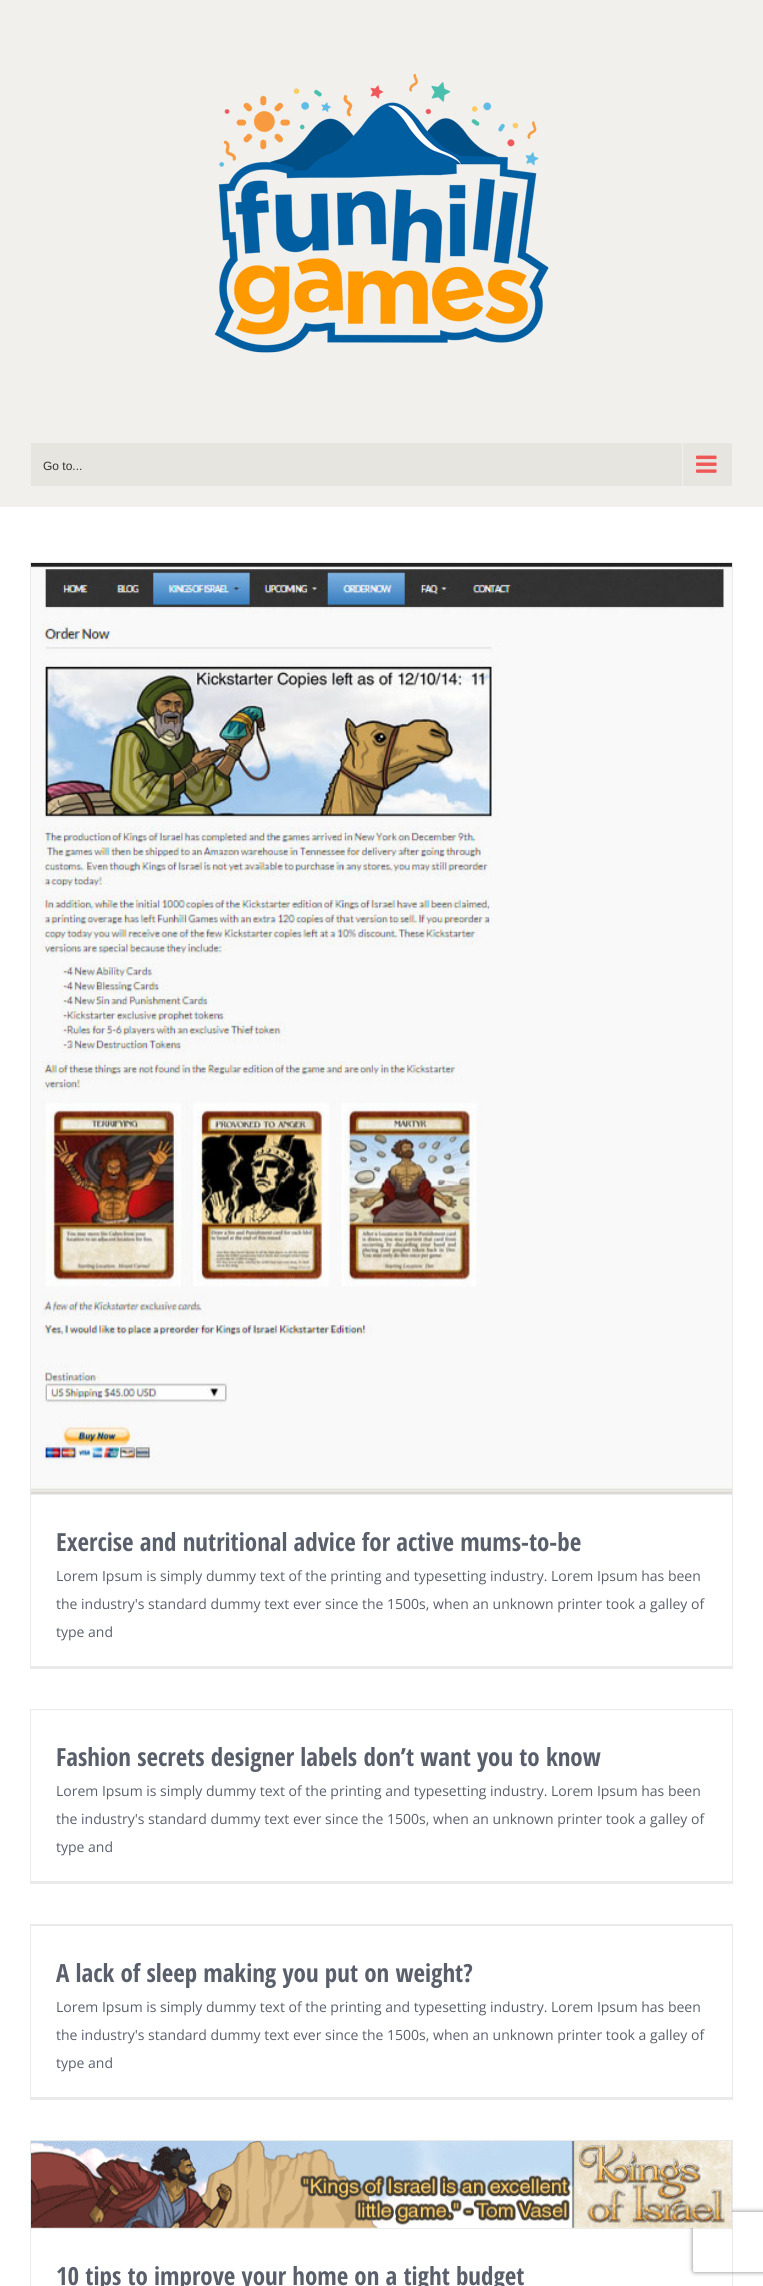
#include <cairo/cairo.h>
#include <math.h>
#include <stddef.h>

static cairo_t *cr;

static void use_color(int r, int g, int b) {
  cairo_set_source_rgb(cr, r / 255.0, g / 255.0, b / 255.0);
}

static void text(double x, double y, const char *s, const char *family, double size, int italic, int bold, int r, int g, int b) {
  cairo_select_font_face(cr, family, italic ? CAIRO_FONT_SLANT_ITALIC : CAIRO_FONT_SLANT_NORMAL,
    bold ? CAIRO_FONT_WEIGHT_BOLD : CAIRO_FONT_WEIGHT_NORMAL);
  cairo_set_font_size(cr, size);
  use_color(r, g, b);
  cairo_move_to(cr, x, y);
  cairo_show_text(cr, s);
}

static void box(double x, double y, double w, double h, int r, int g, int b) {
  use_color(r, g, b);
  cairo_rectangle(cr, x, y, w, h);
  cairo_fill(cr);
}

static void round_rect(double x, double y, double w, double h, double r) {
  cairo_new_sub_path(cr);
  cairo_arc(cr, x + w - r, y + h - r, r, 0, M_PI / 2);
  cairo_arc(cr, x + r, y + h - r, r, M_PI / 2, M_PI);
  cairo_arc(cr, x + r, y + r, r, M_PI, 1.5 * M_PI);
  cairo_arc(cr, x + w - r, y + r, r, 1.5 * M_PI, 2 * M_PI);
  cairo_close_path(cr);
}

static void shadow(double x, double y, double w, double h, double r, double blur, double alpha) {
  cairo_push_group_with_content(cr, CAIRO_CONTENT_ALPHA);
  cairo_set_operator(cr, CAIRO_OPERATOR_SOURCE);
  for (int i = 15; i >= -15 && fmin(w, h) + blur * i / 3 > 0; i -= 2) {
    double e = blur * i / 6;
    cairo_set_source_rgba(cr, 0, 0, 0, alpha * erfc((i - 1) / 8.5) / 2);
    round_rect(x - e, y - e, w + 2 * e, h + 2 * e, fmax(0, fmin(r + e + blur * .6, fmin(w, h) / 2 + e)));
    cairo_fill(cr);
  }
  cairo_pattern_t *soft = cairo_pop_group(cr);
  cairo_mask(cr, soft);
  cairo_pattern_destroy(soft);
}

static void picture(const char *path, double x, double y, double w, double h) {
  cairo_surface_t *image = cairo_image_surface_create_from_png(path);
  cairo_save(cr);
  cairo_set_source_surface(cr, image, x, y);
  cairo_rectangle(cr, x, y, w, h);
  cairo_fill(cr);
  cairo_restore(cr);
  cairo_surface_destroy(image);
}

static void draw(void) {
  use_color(255, 255, 255);
  cairo_paint(cr);
  box(0, 0, 763, 507, 241, 240, 236);
  picture("img_01.png", 215, 74, 334, 279);
  box(31, 443, 701, 43, 230, 229, 223);
  box(682, 443, 1, 43, 241, 240, 236);
  picture("img_02.png", 696, 455, 21, 18);
  box(30, 562, 703, 1, 235, 234, 234);
  box(732, 562, 1, 1107, 235, 234, 234);
  box(30, 1666, 703, 3, 235, 234, 234);
  box(30, 562, 1, 1107, 235, 234, 234);
  box(31, 1494, 701, 1, 235, 234, 234);
  picture("img_03.png", 31, 563, 701, 931);
  box(30, 1709, 703, 1, 235, 234, 234);
  box(732, 1709, 1, 175, 235, 234, 234);
  box(30, 1881, 703, 3, 235, 234, 234);
  box(30, 1709, 1, 175, 235, 234, 234);
  box(30, 1924, 703, 1, 235, 234, 234);
  box(732, 1924, 1, 176, 235, 234, 234);
  box(30, 2097, 703, 3, 235, 234, 234);
  box(30, 1924, 1, 176, 235, 234, 234);
  box(31, 1925, 701, 1, 235, 234, 234);
  box(30, 2140, 703, 1, 235, 234, 234);
  box(732, 2140, 1, 146, 235, 234, 234);
  box(30, 2140, 1, 146, 235, 234, 234);
  box(31, 2228, 701, 1, 235, 234, 234);
  cairo_save(cr);
  cairo_set_fill_rule(cr, CAIRO_FILL_RULE_EVEN_ODD);
  cairo_new_path(cr);
  cairo_move_to(cr, 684, 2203);
  cairo_line_to(cr, 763, 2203);
  cairo_line_to(cr, 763, 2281);
  cairo_line_to(cr, 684, 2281);
  cairo_close_path(cr);
  cairo_move_to(cr, 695, 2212);
  cairo_line_to(cr, 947, 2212);
  cairo_curve_to(cr, 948, 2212, 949, 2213, 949, 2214);
  cairo_line_to(cr, 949, 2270);
  cairo_curve_to(cr, 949, 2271, 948, 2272, 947, 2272);
  cairo_line_to(cr, 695, 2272);
  cairo_curve_to(cr, 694, 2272, 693, 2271, 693, 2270);
  cairo_line_to(cr, 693, 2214);
  cairo_curve_to(cr, 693, 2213, 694, 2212, 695, 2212);
  cairo_close_path(cr);
  cairo_clip(cr);
  use_color(128, 128, 128);
  shadow(693, 2212, 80, 60, 2, 2.5, 1);
  cairo_restore(cr);
  picture("img_04.png", 31, 2141, 701, 87);
  text(43, 470, "Go to...", "Liberation Sans", 12, 0, 0, 51, 51, 51);
  text(56, 1551, "Exercise and nutritional advice for active mums-to-be", "Open Sans Condensed", 25, 0, 1, 89, 95, 107);
  text(56, 1581, "Lorem Ipsum is simply dummy text of the printing and typesetting industry. Lorem Ipsum has been", "Open Sans", 14, 0, 0, 89, 95, 107);
  text(56, 1609, "the industry's standard dummy text ever since the 1500s, when an unknown printer took a galley of", "Open Sans", 14, 0, 0, 89, 95, 107);
  text(56, 1637, "type and", "Open Sans", 14, 0, 0, 89, 95, 107);
  text(56, 1766, "Fashion secrets designer labels don’t want you to know", "Open Sans Condensed", 25, 0, 1, 89, 95, 107);
  text(56, 1796, "Lorem Ipsum is simply dummy text of the printing and typesetting industry. Lorem Ipsum has been", "Open Sans", 14, 0, 0, 89, 95, 107);
  text(56, 1824, "the industry's standard dummy text ever since the 1500s, when an unknown printer took a galley of", "Open Sans", 14, 0, 0, 89, 95, 107);
  text(56, 1852, "type and", "Open Sans", 14, 0, 0, 89, 95, 107);
  text(56, 1982, "A lack of sleep making you put on weight?", "Open Sans Condensed", 25, 0, 1, 89, 95, 107);
  text(56, 2012, "Lorem Ipsum is simply dummy text of the printing and typesetting industry. Lorem Ipsum has been", "Open Sans", 14, 0, 0, 89, 95, 107);
  text(56, 2040, "the industry's standard dummy text ever since the 1500s, when an unknown printer took a galley of", "Open Sans", 14, 0, 0, 89, 95, 107);
  text(56, 2068, "type and", "Open Sans", 14, 0, 0, 89, 95, 107);
  text(56, 2285, "10 tips to improve your home on a tight budget", "Open Sans Condensed", 25, 0, 1, 89, 95, 107);
}

int main(void) {
  cairo_surface_t *surface = cairo_image_surface_create(CAIRO_FORMAT_RGB24, 763, 2286);
  cr = cairo_create(surface);
  cairo_font_options_t *options = cairo_font_options_create();
  cairo_font_options_set_hint_metrics(options, CAIRO_HINT_METRICS_OFF);
  cairo_font_options_set_hint_style(options, CAIRO_HINT_STYLE_NONE);
  cairo_set_font_options(cr, options);
  cairo_set_miter_limit(cr, 4);
  draw();
  cairo_surface_write_to_png(surface, "out.png");
  cairo_font_options_destroy(options);
  cairo_destroy(cr);
  cairo_surface_destroy(surface);
  return 0;
}
